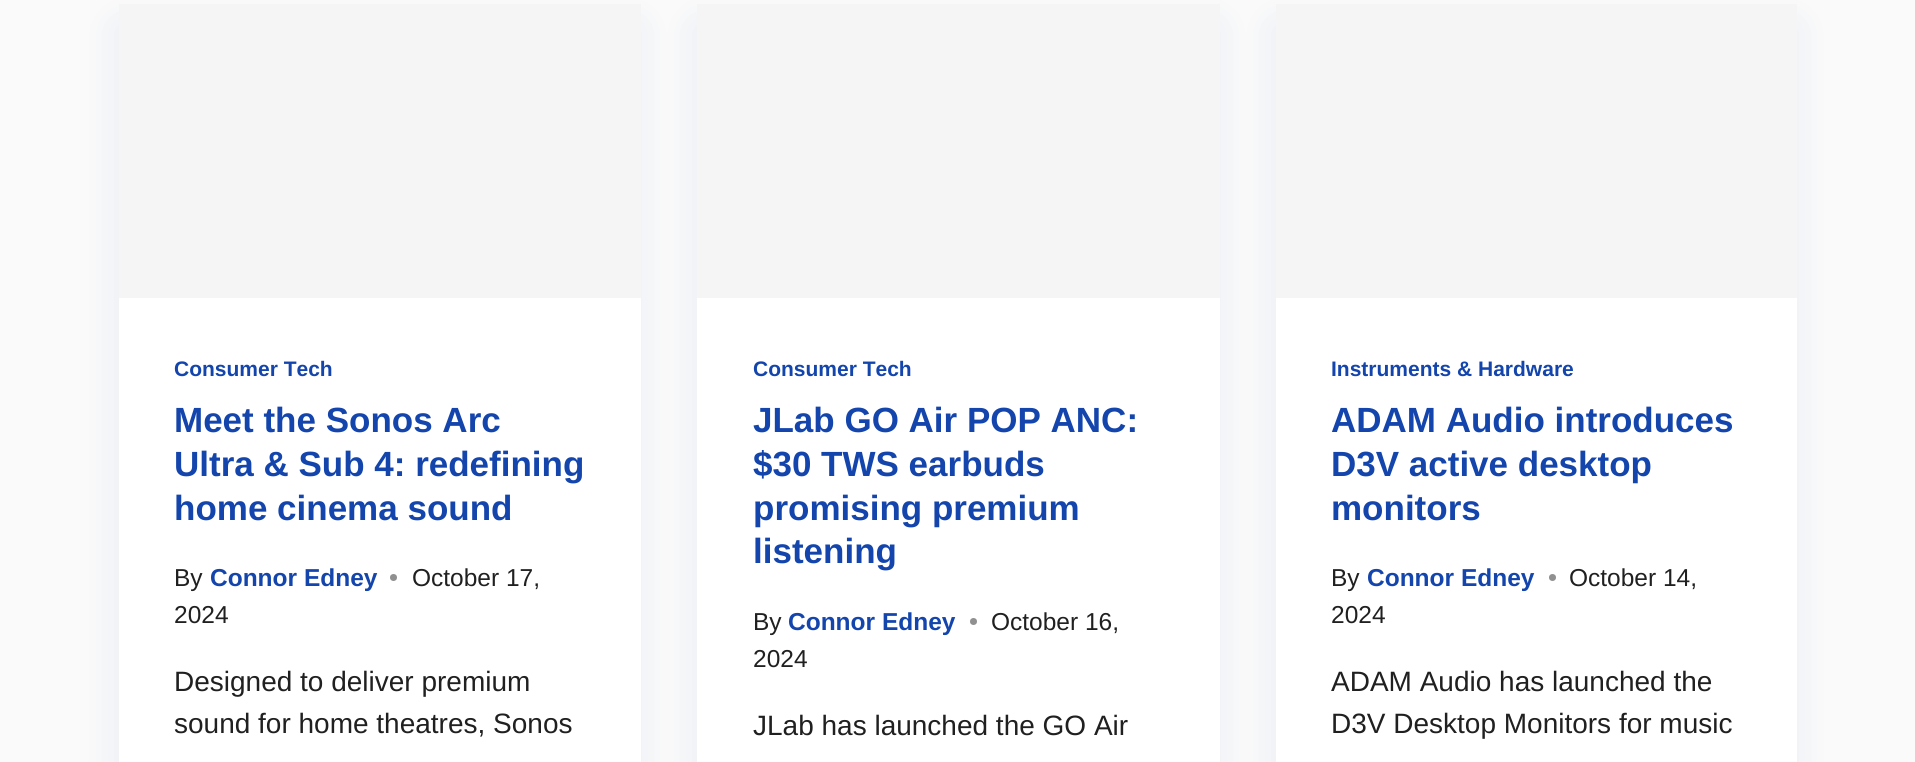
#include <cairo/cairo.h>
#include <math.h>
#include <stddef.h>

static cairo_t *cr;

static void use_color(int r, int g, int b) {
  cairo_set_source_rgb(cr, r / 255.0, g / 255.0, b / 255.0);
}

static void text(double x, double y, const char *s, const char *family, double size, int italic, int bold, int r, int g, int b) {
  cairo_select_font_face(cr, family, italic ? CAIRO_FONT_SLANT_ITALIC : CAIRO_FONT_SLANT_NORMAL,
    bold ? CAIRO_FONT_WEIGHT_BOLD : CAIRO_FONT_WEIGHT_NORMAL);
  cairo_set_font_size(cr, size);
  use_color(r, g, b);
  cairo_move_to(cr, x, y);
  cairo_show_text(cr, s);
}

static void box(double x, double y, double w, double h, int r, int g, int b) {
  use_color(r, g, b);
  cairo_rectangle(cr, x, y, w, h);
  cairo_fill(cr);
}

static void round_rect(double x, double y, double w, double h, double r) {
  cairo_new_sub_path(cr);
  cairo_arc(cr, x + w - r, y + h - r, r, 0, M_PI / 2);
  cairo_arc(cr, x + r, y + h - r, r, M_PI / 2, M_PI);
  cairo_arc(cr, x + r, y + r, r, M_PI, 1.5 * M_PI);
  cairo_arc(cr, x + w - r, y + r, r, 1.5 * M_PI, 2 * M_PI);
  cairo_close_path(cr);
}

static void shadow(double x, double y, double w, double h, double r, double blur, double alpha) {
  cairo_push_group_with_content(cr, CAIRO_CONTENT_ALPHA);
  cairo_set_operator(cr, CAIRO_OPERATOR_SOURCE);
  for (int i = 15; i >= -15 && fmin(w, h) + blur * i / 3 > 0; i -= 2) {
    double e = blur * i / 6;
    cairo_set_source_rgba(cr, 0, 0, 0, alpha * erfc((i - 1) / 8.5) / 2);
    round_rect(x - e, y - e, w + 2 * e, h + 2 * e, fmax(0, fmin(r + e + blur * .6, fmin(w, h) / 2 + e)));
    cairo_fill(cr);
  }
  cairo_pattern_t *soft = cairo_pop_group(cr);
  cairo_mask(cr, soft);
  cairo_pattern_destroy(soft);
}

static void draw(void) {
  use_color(250, 250, 250);
  cairo_paint(cr);
  use_color(19, 69, 172);
  shadow(117, 25, 522, 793, 0, 18.5, 0.08);
  box(119, 298, 522, 464, 255, 255, 255);
  box(119, 4, 522, 294, 245, 245, 245);
  use_color(144, 144, 144);
  cairo_arc(cr, 393.5, 577.5, 3.5, 0, 2 * M_PI);
  cairo_fill(cr);
  use_color(19, 69, 172);
  shadow(695, 25, 523, 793, 0, 18.5, 0.08);
  box(697, 298, 523, 464, 255, 255, 255);
  box(697, 4, 523, 294, 245, 245, 245);
  use_color(144, 144, 144);
  cairo_arc(cr, 973.5, 621.5, 3.5, 0, 2 * M_PI);
  cairo_fill(cr);
  use_color(19, 69, 172);
  shadow(1274, 25, 522, 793, 0, 18.5, 0.08);
  box(1276, 298, 521, 464, 255, 255, 255);
  box(1276, 4, 521, 294, 245, 245, 245);
  use_color(144, 144, 144);
  cairo_arc(cr, 1552.5, 577.5, 3.5, 0, 2 * M_PI);
  cairo_fill(cr);
  text(174, 376, "Consumer Tech", "Liberation Sans", 21, 0, 1, 19, 69, 172);
  text(174, 432, "Meet the Sonos Arc", "Liberation Sans", 35, 0, 1, 19, 69, 172);
  text(174, 476, "Ultra & Sub 4: redefining", "Liberation Sans", 35, 0, 1, 19, 69, 172);
  text(174, 520, "home cinema sound", "Liberation Sans", 35, 0, 1, 19, 69, 172);
  text(174, 586, "By", "Liberation Sans", 24.5, 0, 0, 32, 32, 32);
  text(210, 586, "Connor Edney", "Liberation Sans", 24.5, 0, 1, 19, 69, 172);
  text(412, 586, "October 17,", "Liberation Sans", 24.5, 0, 0, 32, 32, 32);
  text(174, 623, "2024", "Liberation Sans", 24.5, 0, 0, 32, 32, 32);
  text(174, 691, "Designed to deliver premium", "Liberation Sans", 28, 0, 0, 32, 32, 32);
  text(174, 733, "sound for home theatres, Sonos", "Liberation Sans", 28, 0, 0, 32, 32, 32);
  text(753, 376, "Consumer Tech", "Liberation Sans", 21, 0, 1, 19, 69, 172);
  text(753, 432, "JLab GO Air POP ANC:", "Liberation Sans", 35, 0, 1, 19, 69, 172);
  text(753, 476, "$30 TWS earbuds", "Liberation Sans", 35, 0, 1, 19, 69, 172);
  text(753, 520, "promising premium", "Liberation Sans", 35, 0, 1, 19, 69, 172);
  text(753, 563, "listening", "Liberation Sans", 35, 0, 1, 19, 69, 172);
  text(753, 630, "By", "Liberation Sans", 24.5, 0, 0, 32, 32, 32);
  text(788, 630, "Connor Edney", "Liberation Sans", 24.5, 0, 1, 19, 69, 172);
  text(991, 630, "October 16,", "Liberation Sans", 24.5, 0, 0, 32, 32, 32);
  text(753, 667, "2024", "Liberation Sans", 24.5, 0, 0, 32, 32, 32);
  text(753, 735, "JLab has launched the GO Air", "Liberation Sans", 28, 0, 0, 32, 32, 32);
  text(1331, 376, "Instruments & Hardware", "Liberation Sans", 21, 0, 1, 19, 69, 172);
  text(1331, 432, "ADAM Audio introduces", "Liberation Sans", 35, 0, 1, 19, 69, 172);
  text(1331, 476, "D3V active desktop", "Liberation Sans", 35, 0, 1, 19, 69, 172);
  text(1331, 520, "monitors", "Liberation Sans", 35, 0, 1, 19, 69, 172);
  text(1331, 586, "By", "Liberation Sans", 24.5, 0, 0, 32, 32, 32);
  text(1367, 586, "Connor Edney", "Liberation Sans", 24.5, 0, 1, 19, 69, 172);
  text(1569, 586, "October 14,", "Liberation Sans", 24.5, 0, 0, 32, 32, 32);
  text(1331, 623, "2024", "Liberation Sans", 24.5, 0, 0, 32, 32, 32);
  text(1331, 691, "ADAM Audio has launched the", "Liberation Sans", 28, 0, 0, 32, 32, 32);
  text(1331, 733, "D3V Desktop Monitors for music", "Liberation Sans", 28, 0, 0, 32, 32, 32);
}

int main(void) {
  cairo_surface_t *surface = cairo_image_surface_create(CAIRO_FORMAT_RGB24, 1915, 762);
  cr = cairo_create(surface);
  cairo_font_options_t *options = cairo_font_options_create();
  cairo_font_options_set_hint_metrics(options, CAIRO_HINT_METRICS_OFF);
  cairo_font_options_set_hint_style(options, CAIRO_HINT_STYLE_NONE);
  cairo_set_font_options(cr, options);
  cairo_set_miter_limit(cr, 4);
  draw();
  cairo_surface_write_to_png(surface, "out.png");
  cairo_font_options_destroy(options);
  cairo_destroy(cr);
  cairo_surface_destroy(surface);
  return 0;
}
